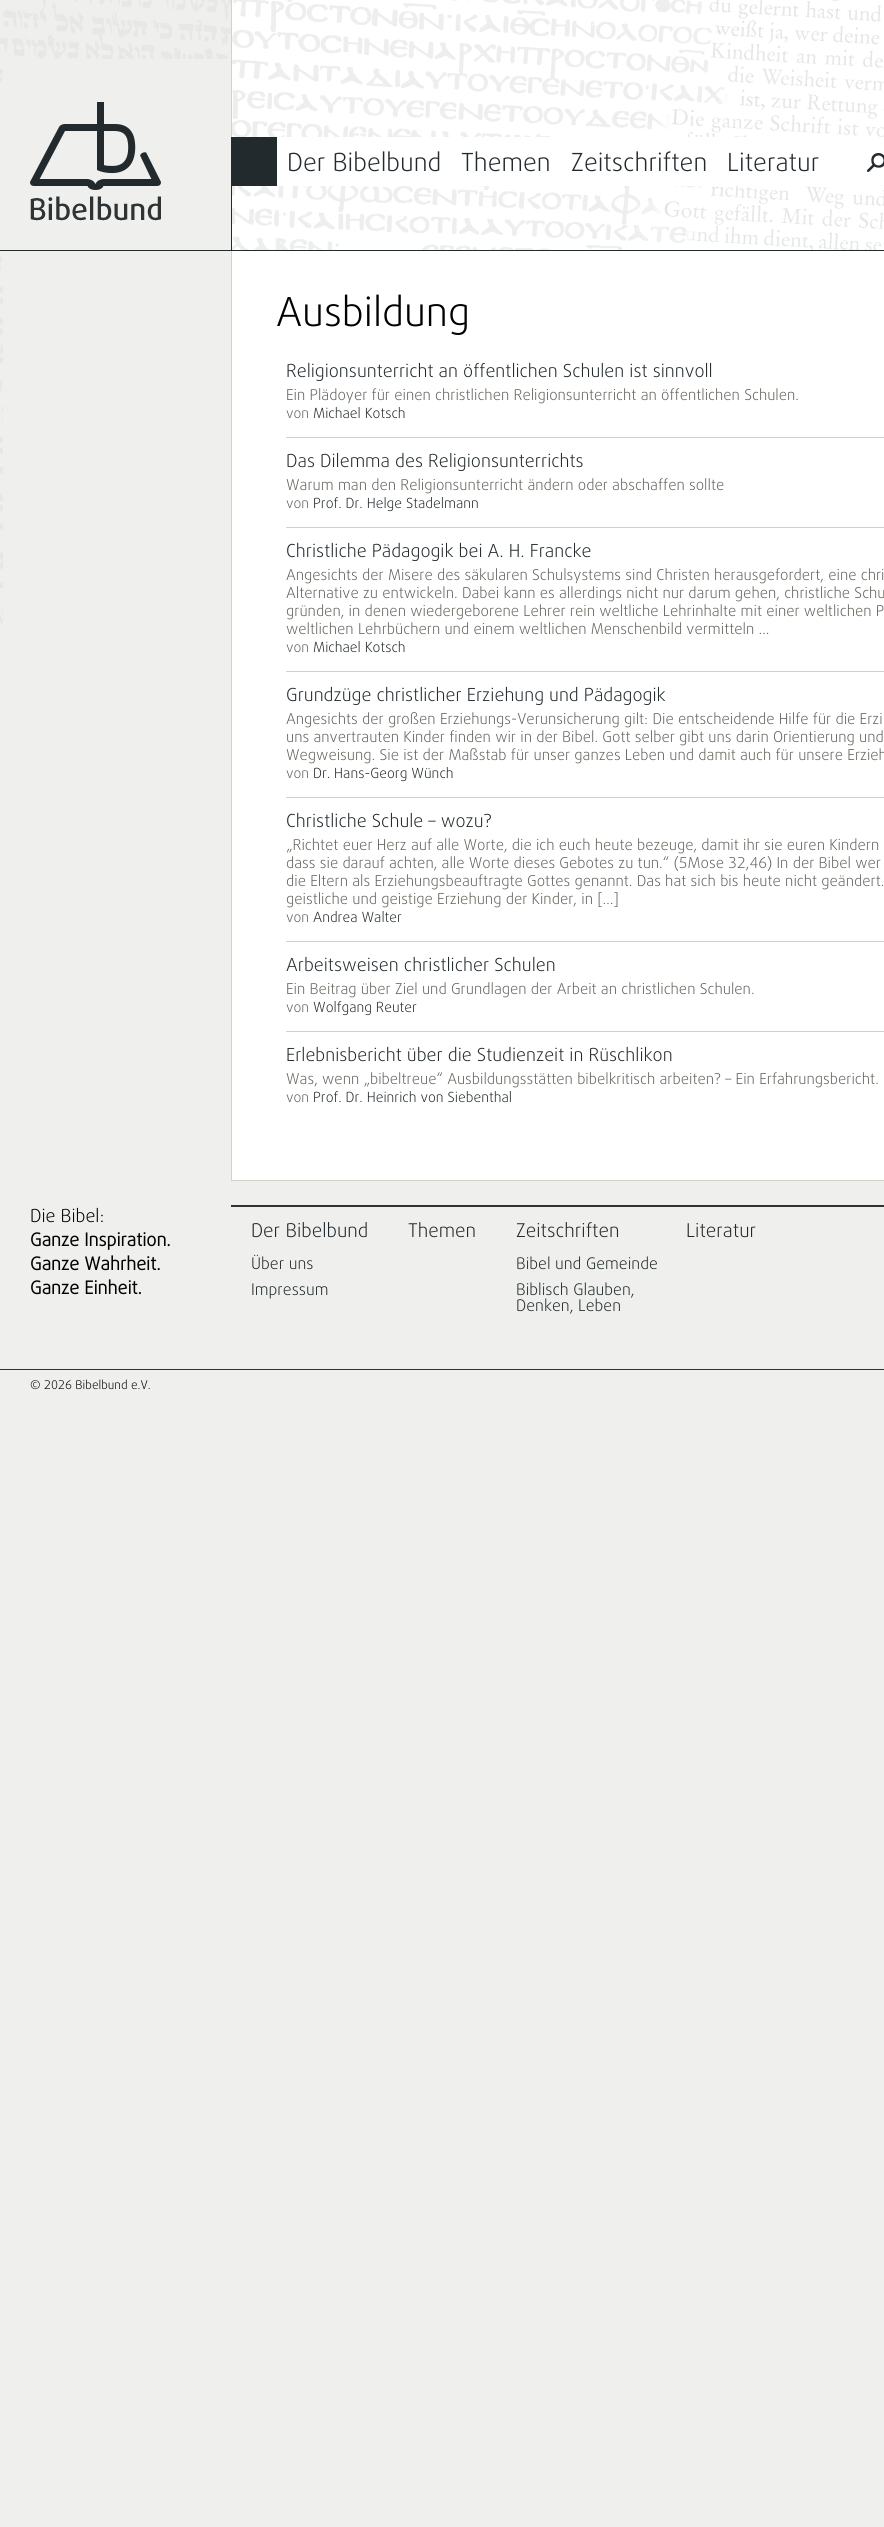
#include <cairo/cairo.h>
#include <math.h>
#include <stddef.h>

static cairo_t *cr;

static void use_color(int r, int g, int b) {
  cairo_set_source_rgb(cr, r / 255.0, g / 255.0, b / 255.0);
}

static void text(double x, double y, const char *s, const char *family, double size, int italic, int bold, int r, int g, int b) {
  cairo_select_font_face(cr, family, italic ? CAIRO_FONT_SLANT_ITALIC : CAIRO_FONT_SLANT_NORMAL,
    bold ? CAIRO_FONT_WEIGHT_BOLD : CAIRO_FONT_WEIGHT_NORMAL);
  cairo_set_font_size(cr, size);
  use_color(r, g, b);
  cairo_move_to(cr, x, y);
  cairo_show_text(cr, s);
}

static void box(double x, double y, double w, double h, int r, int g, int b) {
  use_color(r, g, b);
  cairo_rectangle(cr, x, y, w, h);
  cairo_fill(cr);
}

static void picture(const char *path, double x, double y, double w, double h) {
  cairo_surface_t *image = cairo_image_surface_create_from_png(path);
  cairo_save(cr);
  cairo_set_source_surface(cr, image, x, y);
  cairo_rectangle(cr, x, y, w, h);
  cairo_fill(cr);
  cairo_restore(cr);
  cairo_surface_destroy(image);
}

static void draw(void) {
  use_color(239, 240, 237);
  cairo_paint(cr);
  picture("img_01.png", 0, 0, 231, 625);
  picture("img_02.png", 232, 0, 652, 250);
  box(0, 250, 884, 1, 35, 42, 45);
  box(0, 86, 3, 112, 239, 240, 237);
  picture("img_03.png", 30, 102, 131, 119);
  box(231, 0, 1, 137, 208, 210, 204);
  box(231, 137, 1, 113, 35, 42, 45);
  box(232, 137, 45, 49, 35, 42, 45);
  box(277, 137, 551, 49, 255, 255, 255);
  box(828, 141, 25, 40, 255, 255, 255);
  picture("img_04.png", 853, 148, 31, 35);
  box(232, 251, 652, 929, 255, 255, 255);
  box(231, 1180, 653, 1, 208, 210, 204);
  box(231, 251, 1, 930, 208, 210, 204);
  box(286, 437, 598, 1, 208, 210, 204);
  box(286, 527, 598, 1, 208, 210, 204);
  box(286, 671, 598, 1, 208, 210, 204);
  box(286, 797, 598, 1, 208, 210, 204);
  box(286, 941, 598, 1, 208, 210, 204);
  box(286, 1031, 598, 1, 208, 210, 204);
  box(231, 1205, 653, 2, 46, 52, 54);
  box(0, 1369, 884, 1, 46, 52, 54);
  text(287, 171, "Der Bibelbund", "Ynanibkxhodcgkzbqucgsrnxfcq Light", 25, 0, 0, 35, 42, 45);
  text(461, 171, "Themen", "Ynanibkxhodcgkzbqucgsrnxfcq Light", 25, 0, 0, 35, 42, 45);
  text(571, 171, "Zeitschriften", "Ynanibkxhodcgkzbqucgsrnxfcq Light", 25, 0, 0, 35, 42, 45);
  text(727, 171, "Literatur", "Ynanibkxhodcgkzbqucgsrnxfcq Light", 25, 0, 0, 35, 42, 45);
  text(276, 326, "Ausbildung", "Ynanibkxhodcgkzbqucgsrnxfcq Light", 40, 0, 0, 0, 0, 0);
  text(286, 377, "Religionsunterricht an öffentlichen Schulen ist sinnvoll", "Ynanibkxhodcgkzbqucgsrnxfcq Light", 18, 0, 0, 35, 42, 45);
  text(286, 400, "Ein Plädoyer für einen christlichen Religionsunterricht an öffentlichen Schulen.", "Ynanibkxhodcgkzbqucgsrnxfcq Light", 15, 0, 0, 95, 100, 90);
  text(286, 418, "von", "Ynanibkxhodcgkzbqucgsrnxfcq Light", 14, 0, 0, 95, 100, 90);
  text(313, 418, "Michael Kotsch", "Ynanibkxhodcgkzbqucgsrnxfcq Light", 14, 0, 0, 35, 42, 45);
  text(286, 467, "Das Dilemma des Religionsunterrichts", "Ynanibkxhodcgkzbqucgsrnxfcq Light", 18, 0, 0, 35, 42, 45);
  text(286, 490, "Warum man den Religionsunterricht ändern oder abschaffen sollte", "Ynanibkxhodcgkzbqucgsrnxfcq Light", 15, 0, 0, 95, 100, 90);
  text(286, 508, "von", "Ynanibkxhodcgkzbqucgsrnxfcq Light", 14, 0, 0, 95, 100, 90);
  text(313, 508, "Prof. Dr. Helge Stadelmann", "Ynanibkxhodcgkzbqucgsrnxfcq Light", 14, 0, 0, 35, 42, 45);
  text(286, 557, "Christliche Pädagogik bei A. H. Francke", "Ynanibkxhodcgkzbqucgsrnxfcq Light", 18, 0, 0, 35, 42, 45);
  text(286, 580, "Angesichts der Misere des säkularen Schulsystems sind Christen herausgefordert, eine chri", "Ynanibkxhodcgkzbqucgsrnxfcq Light", 15, 0, 0, 95, 100, 90);
  text(286, 598, "Alternative zu entwickeln. Dabei kann es allerdings nicht nur darum gehen, christliche Schu", "Ynanibkxhodcgkzbqucgsrnxfcq Light", 15, 0, 0, 95, 100, 90);
  text(286, 616, "gründen, in denen wiedergeborene Lehrer rein weltliche Lehrinhalte mit einer weltlichen P", "Ynanibkxhodcgkzbqucgsrnxfcq Light", 15, 0, 0, 95, 100, 90);
  text(286, 634, "weltlichen Lehrbüchern und einem weltlichen Menschenbild vermitteln ...", "Ynanibkxhodcgkzbqucgsrnxfcq Light", 15, 0, 0, 95, 100, 90);
  text(286, 652, "von", "Ynanibkxhodcgkzbqucgsrnxfcq Light", 14, 0, 0, 95, 100, 90);
  text(313, 652, "Michael Kotsch", "Ynanibkxhodcgkzbqucgsrnxfcq Light", 14, 0, 0, 35, 42, 45);
  text(286, 701, "Grundzüge christlicher Erziehung und Pädagogik", "Ynanibkxhodcgkzbqucgsrnxfcq Light", 18, 0, 0, 35, 42, 45);
  text(286, 724, "Angesichts der großen Erziehungs-Verunsicherung gilt: Die entscheidende Hilfe für die Erzi", "Ynanibkxhodcgkzbqucgsrnxfcq Light", 15, 0, 0, 95, 100, 90);
  text(286, 742, "uns anvertrauten Kinder finden wir in der Bibel. Gott selber gibt uns darin Orientierung und", "Ynanibkxhodcgkzbqucgsrnxfcq Light", 15, 0, 0, 95, 100, 90);
  text(286, 760, "Wegweisung. Sie ist der Maßstab für unser ganzes Leben und damit auch für unsere Erzieh", "Ynanibkxhodcgkzbqucgsrnxfcq Light", 15, 0, 0, 95, 100, 90);
  text(286, 778, "von", "Ynanibkxhodcgkzbqucgsrnxfcq Light", 14, 0, 0, 95, 100, 90);
  text(313, 778, "Dr. Hans-Georg Wünch", "Ynanibkxhodcgkzbqucgsrnxfcq Light", 14, 0, 0, 35, 42, 45);
  text(286, 827, "Christliche Schule – wozu?", "Ynanibkxhodcgkzbqucgsrnxfcq Light", 18, 0, 0, 35, 42, 45);
  text(286, 850, "„Richtet euer Herz auf alle Worte, die ich euch heute bezeuge, damit ihr sie euren Kindern", "Ynanibkxhodcgkzbqucgsrnxfcq Light", 15, 0, 0, 95, 100, 90);
  text(286, 868, "dass sie darauf achten, alle Worte dieses Gebotes zu tun.“ (5Mose 32,46) In der Bibel wer", "Ynanibkxhodcgkzbqucgsrnxfcq Light", 15, 0, 0, 95, 100, 90);
  text(286, 886, "die Eltern als Erziehungsbeauftragte Gottes genannt. Das hat sich bis heute nicht geändert.", "Ynanibkxhodcgkzbqucgsrnxfcq Light", 15, 0, 0, 95, 100, 90);
  text(286, 904, "geistliche und geistige Erziehung der Kinder, in […]", "Ynanibkxhodcgkzbqucgsrnxfcq Light", 15, 0, 0, 95, 100, 90);
  text(286, 922, "von", "Ynanibkxhodcgkzbqucgsrnxfcq Light", 14, 0, 0, 95, 100, 90);
  text(313, 922, "Andrea Walter", "Ynanibkxhodcgkzbqucgsrnxfcq Light", 14, 0, 0, 35, 42, 45);
  text(286, 971, "Arbeitsweisen christlicher Schulen", "Ynanibkxhodcgkzbqucgsrnxfcq Light", 18, 0, 0, 35, 42, 45);
  text(286, 994, "Ein Beitrag über Ziel und Grundlagen der Arbeit an christlichen Schulen.", "Ynanibkxhodcgkzbqucgsrnxfcq Light", 15, 0, 0, 95, 100, 90);
  text(286, 1012, "von", "Ynanibkxhodcgkzbqucgsrnxfcq Light", 14, 0, 0, 95, 100, 90);
  text(313, 1012, "Wolfgang Reuter", "Ynanibkxhodcgkzbqucgsrnxfcq Light", 14, 0, 0, 35, 42, 45);
  text(286, 1061, "Erlebnisbericht über die Studienzeit in Rüschlikon", "Ynanibkxhodcgkzbqucgsrnxfcq Light", 18, 0, 0, 35, 42, 45);
  text(286, 1084, "Was, wenn „bibeltreue“ Ausbildungsstätten bibelkritisch arbeiten? – Ein Erfahrungsbericht.", "Ynanibkxhodcgkzbqucgsrnxfcq Light", 15, 0, 0, 95, 100, 90);
  text(286, 1102, "von", "Ynanibkxhodcgkzbqucgsrnxfcq Light", 14, 0, 0, 95, 100, 90);
  text(313, 1102, "Prof. Dr. Heinrich von Siebenthal", "Ynanibkxhodcgkzbqucgsrnxfcq Light", 14, 0, 0, 35, 42, 45);
  text(30, 1222, "Die Bibel:", "Ynanibkxhodcgkzbqucgsrnxfcq Light", 18, 0, 0, 0, 0, 0);
  text(30, 1246, "Ganze Inspiration.", "Ynanibkxhodcgkzbqucgsrnxfcq", 18, 0, 1, 0, 0, 0);
  text(30, 1270, "Ganze Wahrheit.", "Ynanibkxhodcgkzbqucgsrnxfcq", 18, 0, 1, 0, 0, 0);
  text(30, 1294, "Ganze Einheit.", "Ynanibkxhodcgkzbqucgsrnxfcq", 18, 0, 1, 0, 0, 0);
  text(251, 1237, "Der Bibelbund", "Ynanibkxhodcgkzbqucgsrnxfcq Light", 19, 0, 0, 35, 42, 45);
  text(251, 1269, "Über uns", "Ynanibkxhodcgkzbqucgsrnxfcq Light", 16, 0, 0, 35, 42, 45);
  text(251, 1295, "Impressum", "Ynanibkxhodcgkzbqucgsrnxfcq Light", 16, 0, 0, 35, 42, 45);
  text(408, 1237, "Themen", "Ynanibkxhodcgkzbqucgsrnxfcq Light", 19, 0, 0, 35, 42, 45);
  text(516, 1237, "Zeitschriften", "Ynanibkxhodcgkzbqucgsrnxfcq Light", 19, 0, 0, 35, 42, 45);
  text(516, 1269, "Bibel und Gemeinde", "Ynanibkxhodcgkzbqucgsrnxfcq Light", 16, 0, 0, 35, 42, 45);
  text(516, 1295, "Biblisch Glauben,", "Ynanibkxhodcgkzbqucgsrnxfcq Light", 16, 0, 0, 35, 42, 45);
  text(516, 1311, "Denken, Leben", "Ynanibkxhodcgkzbqucgsrnxfcq Light", 16, 0, 0, 35, 42, 45);
  text(686, 1237, "Literatur", "Ynanibkxhodcgkzbqucgsrnxfcq Light", 19, 0, 0, 35, 42, 45);
  text(30, 1389, "© 2026 Bibelbund e.V.", "Ynanibkxhodcgkzbqucgsrnxfcq Light", 12, 0, 0, 0, 0, 0);
}

int main(void) {
  cairo_surface_t *surface = cairo_image_surface_create(CAIRO_FORMAT_RGB24, 884, 2527);
  cr = cairo_create(surface);
  cairo_font_options_t *options = cairo_font_options_create();
  cairo_font_options_set_hint_metrics(options, CAIRO_HINT_METRICS_OFF);
  cairo_font_options_set_hint_style(options, CAIRO_HINT_STYLE_NONE);
  cairo_set_font_options(cr, options);
  cairo_set_miter_limit(cr, 4);
  draw();
  cairo_surface_write_to_png(surface, "out.png");
  cairo_font_options_destroy(options);
  cairo_destroy(cr);
  cairo_surface_destroy(surface);
  return 0;
}
